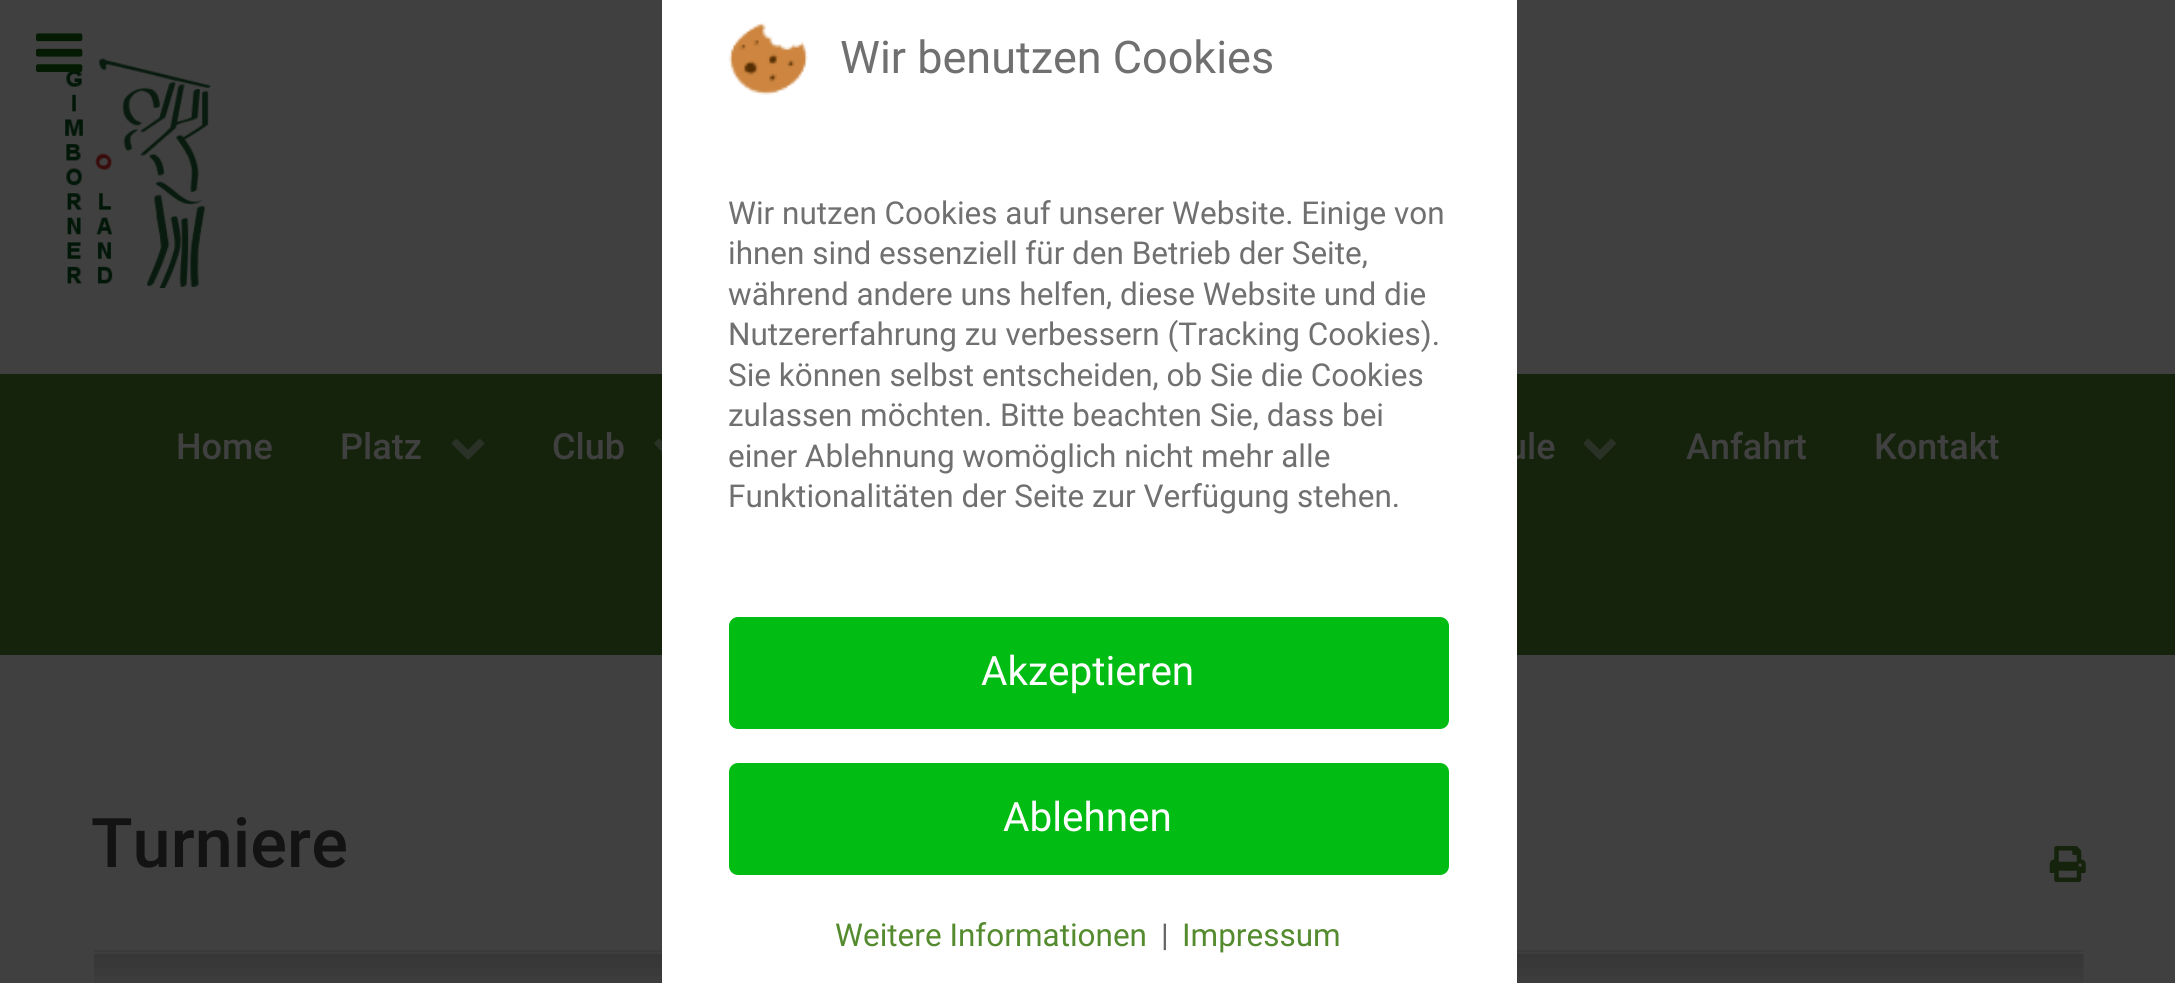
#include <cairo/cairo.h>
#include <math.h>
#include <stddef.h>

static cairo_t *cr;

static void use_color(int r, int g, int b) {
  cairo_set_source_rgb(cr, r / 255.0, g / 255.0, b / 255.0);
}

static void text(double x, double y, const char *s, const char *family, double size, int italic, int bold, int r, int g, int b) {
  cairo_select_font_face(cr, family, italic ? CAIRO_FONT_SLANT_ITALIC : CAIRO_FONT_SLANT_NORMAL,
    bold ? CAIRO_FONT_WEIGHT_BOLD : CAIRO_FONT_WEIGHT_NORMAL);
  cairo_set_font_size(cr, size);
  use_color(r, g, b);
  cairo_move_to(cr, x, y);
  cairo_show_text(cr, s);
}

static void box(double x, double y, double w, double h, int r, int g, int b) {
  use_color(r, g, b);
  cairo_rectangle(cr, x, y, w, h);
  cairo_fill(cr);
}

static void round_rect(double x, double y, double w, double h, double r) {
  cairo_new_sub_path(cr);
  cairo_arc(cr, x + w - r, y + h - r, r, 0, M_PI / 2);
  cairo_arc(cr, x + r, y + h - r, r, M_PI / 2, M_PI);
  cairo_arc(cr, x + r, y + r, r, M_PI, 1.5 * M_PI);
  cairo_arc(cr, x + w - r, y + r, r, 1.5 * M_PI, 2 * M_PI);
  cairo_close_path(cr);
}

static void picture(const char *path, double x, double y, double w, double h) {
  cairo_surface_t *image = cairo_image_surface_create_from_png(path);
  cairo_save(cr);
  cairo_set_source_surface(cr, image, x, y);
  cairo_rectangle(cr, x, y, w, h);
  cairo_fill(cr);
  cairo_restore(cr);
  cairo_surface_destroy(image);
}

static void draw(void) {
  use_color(64, 64, 64);
  cairo_paint(cr);
  picture("img_03.png", 65, 58, 146, 230);
  picture("img_02.png", 36, 33, 47, 39);
  box(0, 374, 2175, 281, 21, 35, 12);
  picture("img_04.png", 451, 438, 34, 22);
  picture("img_05.png", 654, 438, 8, 14);
  picture("img_06.png", 1583, 438, 33, 22);
  picture("img_07.png", 2049, 846, 37, 36);
  box(92, 950, 1994, 2, 59, 59, 59);
  picture("img_08.png", 94, 953, 1990, 30);
  box(2084, 950, 2, 2, 64, 64, 64);
  box(92, 950, 2, 2, 64, 64, 64);
  text(176, 459, "Home", "Roboto Medium", 36, 0, 0, 64, 64, 64);
  text(340, 459, "Platz", "Roboto Medium", 36, 0, 0, 64, 64, 64);
  text(552, 459, "Club", "Roboto Medium", 36, 0, 0, 64, 64, 64);
  text(1507, 459, "ule", "Roboto Medium", 36, 0, 0, 64, 64, 64);
  box(662, 0, 855, 983, 255, 255, 255);
  picture("img_01.png", 728, 22, 80, 73);
  text(840, 73, "Wir benutzen Cookies", "Roboto", 45, 0, 0, 112, 112, 112);
  text(1182, 946, "Impressum", "Roboto", 31.5, 0, 0, 85, 139, 47);
  text(1161, 946, "|", "Roboto", 31.5, 0, 0, 102, 102, 102);
  text(835, 946, "Weitere Informationen", "Roboto", 31.5, 0, 0, 85, 139, 47);
  use_color(0, 188, 19);
  round_rect(729, 763, 720, 112, 9);
  cairo_fill(cr);
  text(1003, 831, "Ablehnen", "Roboto", 40.5, 0, 0, 255, 255, 255);
  use_color(0, 188, 19);
  round_rect(729, 617, 720, 112, 9);
  cairo_fill(cr);
  text(981, 685, "Akzeptieren", "Roboto", 40.5, 0, 0, 255, 255, 255);
  text(728, 507, "Funktionalitäten der Seite zur Verfügung stehen.", "Roboto", 31.5, 0, 0, 112, 112, 112);
  text(728, 467, "einer Ablehnung womöglich nicht mehr alle", "Roboto", 31.5, 0, 0, 112, 112, 112);
  text(728, 426, "zulassen möchten. Bitte beachten Sie, dass bei", "Roboto", 31.5, 0, 0, 112, 112, 112);
  text(728, 386, "Sie können selbst entscheiden, ob Sie die Cookies", "Roboto", 31.5, 0, 0, 112, 112, 112);
  text(728, 345, "Nutzererfahrung zu verbessern (Tracking Cookies).", "Roboto", 31.5, 0, 0, 112, 112, 112);
  text(728, 305, "während andere uns helfen, diese Website und die", "Roboto", 31.5, 0, 0, 112, 112, 112);
  text(728, 264, "ihnen sind essenziell für den Betrieb der Seite,", "Roboto", 31.5, 0, 0, 112, 112, 112);
  text(728, 224, "Wir nutzen Cookies auf unserer Website. Einige von", "Roboto", 31.5, 0, 0, 112, 112, 112);
  text(1686, 459, "Anfahrt", "Roboto Medium", 36, 0, 0, 64, 64, 64);
  text(1874, 459, "Kontakt", "Roboto Medium", 36, 0, 0, 64, 64, 64);
  text(91, 867, "Turniere", "Roboto Medium", 68.5, 0, 0, 19, 19, 19);
}

int main(void) {
  cairo_surface_t *surface = cairo_image_surface_create(CAIRO_FORMAT_RGB24, 2175, 983);
  cr = cairo_create(surface);
  cairo_font_options_t *options = cairo_font_options_create();
  cairo_font_options_set_hint_metrics(options, CAIRO_HINT_METRICS_OFF);
  cairo_font_options_set_hint_style(options, CAIRO_HINT_STYLE_NONE);
  cairo_set_font_options(cr, options);
  cairo_set_miter_limit(cr, 4);
  draw();
  cairo_surface_write_to_png(surface, "out.png");
  cairo_font_options_destroy(options);
  cairo_destroy(cr);
  cairo_surface_destroy(surface);
  return 0;
}
